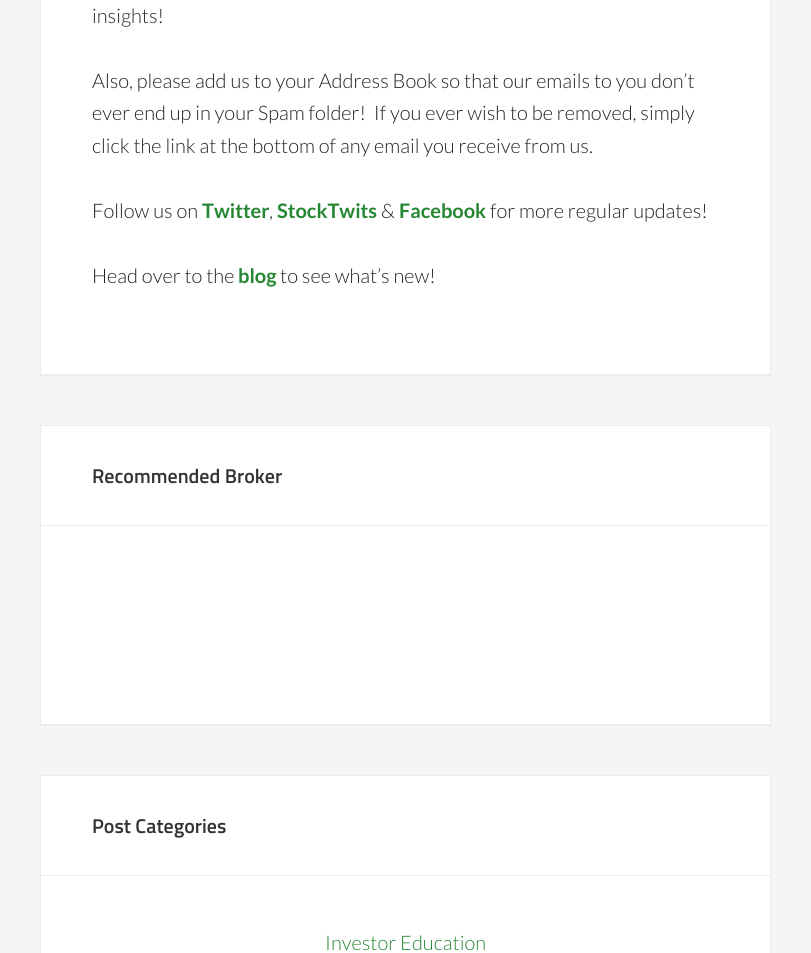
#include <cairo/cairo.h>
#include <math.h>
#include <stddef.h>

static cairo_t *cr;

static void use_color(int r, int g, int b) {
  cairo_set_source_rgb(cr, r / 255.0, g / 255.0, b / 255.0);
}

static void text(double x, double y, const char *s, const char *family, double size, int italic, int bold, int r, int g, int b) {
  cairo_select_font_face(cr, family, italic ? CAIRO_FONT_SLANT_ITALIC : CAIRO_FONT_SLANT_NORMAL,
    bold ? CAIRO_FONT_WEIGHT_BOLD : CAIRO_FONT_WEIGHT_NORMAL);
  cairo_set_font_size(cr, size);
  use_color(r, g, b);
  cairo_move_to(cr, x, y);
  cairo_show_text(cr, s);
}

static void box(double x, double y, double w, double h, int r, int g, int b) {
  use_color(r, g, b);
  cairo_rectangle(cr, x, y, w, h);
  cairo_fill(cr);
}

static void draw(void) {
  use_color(245, 245, 245);
  cairo_paint(cr);
  box(40, 375, 731, 1, 236, 236, 236);
  use_color(255, 255, 255);
  cairo_rectangle(cr, 40.5, -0.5, 730, 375);
  cairo_fill_preserve(cr);
  use_color(236, 236, 236);
  cairo_set_line_width(cr, 1);
  cairo_stroke(cr);
  box(40, 725, 731, 1, 236, 236, 236);
  use_color(255, 255, 255);
  cairo_rectangle(cr, 40.5, 425.5, 730, 299);
  cairo_fill_preserve(cr);
  use_color(236, 236, 236);
  cairo_stroke(cr);
  box(41, 525, 729, 1, 236, 236, 236);
  use_color(255, 255, 255);
  cairo_rectangle(cr, 40.5, 775.5, 730, 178);
  cairo_fill_preserve(cr);
  use_color(236, 236, 236);
  cairo_stroke(cr);
  box(41, 875, 729, 1, 236, 236, 236);
  text(92, 23, "insights!", "Lato Light", 20, 0, 0, 34, 34, 34);
  text(92, 88, "Also, please add us to your Address Book so that our emails to you don’t", "Lato Light", 20, 0, 0, 34, 34, 34);
  text(92, 120, "ever end up in your Spam folder!  If you ever wish to be removed, simply", "Lato Light", 20, 0, 0, 34, 34, 34);
  text(92, 153, "click the link at the bottom of any email you receive from us.", "Lato Light", 20, 0, 0, 34, 34, 34);
  text(92, 218, "Follow us on", "Lato Light", 20, 0, 0, 34, 34, 34);
  text(202, 218, "Twitter", "Lato", 20, 0, 1, 38, 135, 51);
  text(269, 218, ",", "Lato Light", 20, 0, 0, 34, 34, 34);
  text(277, 218, "StockTwits", "Lato", 20, 0, 1, 38, 135, 51);
  text(381, 218, "&", "Lato Light", 20, 0, 0, 34, 34, 34);
  text(399, 218, "Facebook", "Lato", 20, 0, 1, 38, 135, 51);
  text(490, 218, "for more regular updates!", "Lato Light", 20, 0, 0, 34, 34, 34);
  text(92, 283, "Head over to the", "Lato Light", 20, 0, 0, 34, 34, 34);
  text(238, 283, "blog", "Lato", 20, 0, 1, 38, 135, 51);
  text(280, 283, "to see what’s new!", "Lato Light", 20, 0, 0, 34, 34, 34);
  text(92, 483, "Recommended Broker", "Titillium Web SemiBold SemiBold", 20, 0, 0, 51, 51, 51);
  text(92, 833, "Post Categories", "Titillium Web SemiBold SemiBold", 20, 0, 0, 51, 51, 51);
  text(325, 950, "Investor Education", "Lato Light", 20, 0, 0, 38, 135, 51);
}

int main(void) {
  cairo_surface_t *surface = cairo_image_surface_create(CAIRO_FORMAT_RGB24, 811, 953);
  cr = cairo_create(surface);
  cairo_font_options_t *options = cairo_font_options_create();
  cairo_font_options_set_hint_metrics(options, CAIRO_HINT_METRICS_OFF);
  cairo_font_options_set_hint_style(options, CAIRO_HINT_STYLE_NONE);
  cairo_set_font_options(cr, options);
  cairo_set_miter_limit(cr, 4);
  draw();
  cairo_surface_write_to_png(surface, "out.png");
  cairo_font_options_destroy(options);
  cairo_destroy(cr);
  cairo_surface_destroy(surface);
  return 0;
}
